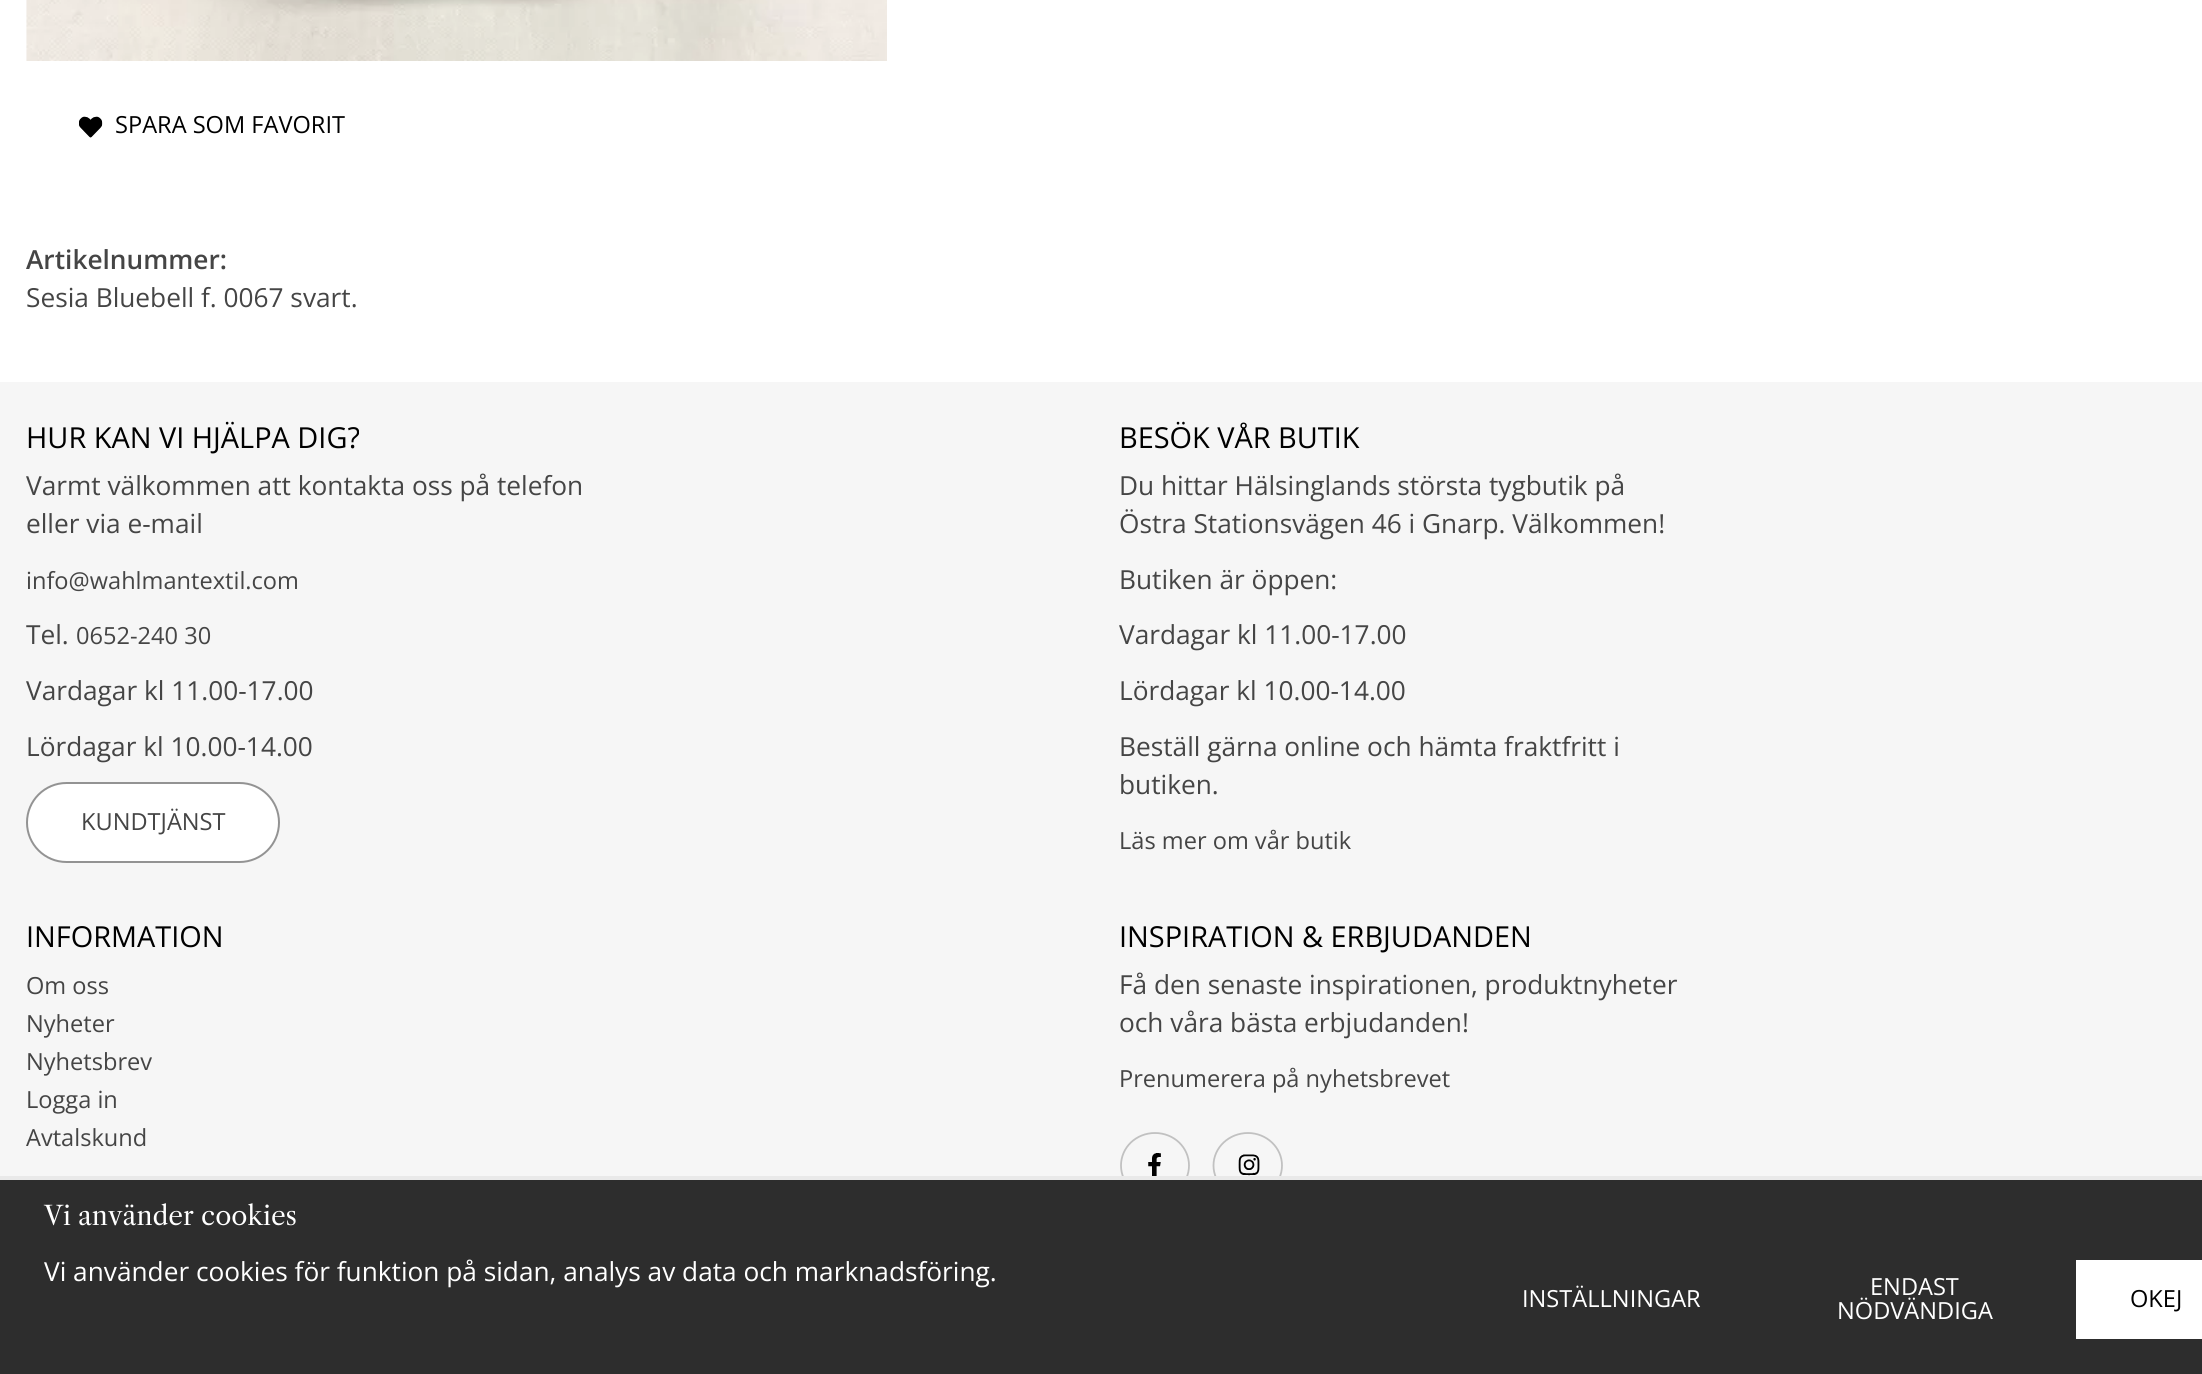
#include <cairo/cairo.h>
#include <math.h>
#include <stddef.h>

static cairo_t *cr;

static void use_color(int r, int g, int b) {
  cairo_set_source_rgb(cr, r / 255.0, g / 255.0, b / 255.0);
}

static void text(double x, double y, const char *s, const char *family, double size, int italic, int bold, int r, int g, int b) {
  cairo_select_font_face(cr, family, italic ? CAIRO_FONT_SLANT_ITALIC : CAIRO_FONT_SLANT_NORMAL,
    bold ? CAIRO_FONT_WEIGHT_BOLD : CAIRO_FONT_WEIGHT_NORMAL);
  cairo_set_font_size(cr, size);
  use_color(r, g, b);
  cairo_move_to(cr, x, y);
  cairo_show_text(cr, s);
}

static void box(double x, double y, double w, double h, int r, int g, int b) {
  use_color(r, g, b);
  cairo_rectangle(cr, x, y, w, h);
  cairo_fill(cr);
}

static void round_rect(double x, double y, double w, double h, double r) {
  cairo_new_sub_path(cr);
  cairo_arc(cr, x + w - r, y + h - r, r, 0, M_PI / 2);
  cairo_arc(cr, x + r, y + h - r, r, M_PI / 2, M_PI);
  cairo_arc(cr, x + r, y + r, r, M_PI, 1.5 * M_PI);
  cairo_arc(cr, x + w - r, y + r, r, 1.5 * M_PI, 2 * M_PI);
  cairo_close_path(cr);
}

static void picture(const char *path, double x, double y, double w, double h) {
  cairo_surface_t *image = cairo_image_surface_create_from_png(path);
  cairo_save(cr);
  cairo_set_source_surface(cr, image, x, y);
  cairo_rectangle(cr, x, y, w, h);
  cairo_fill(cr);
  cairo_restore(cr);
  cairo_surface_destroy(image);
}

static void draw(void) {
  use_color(255, 255, 255);
  cairo_paint(cr);
  picture("img_01.png", 26, 0, 861, 61);
  picture("img_02.png", 79, 116, 24, 22);
  box(0, 382, 2202, 794, 246, 246, 246);
  use_color(255, 255, 255);
  round_rect(27, 783, 252, 79, 39.5);
  cairo_fill_preserve(cr);
  use_color(147, 147, 147);
  cairo_stroke(cr);
  cairo_new_path(cr);
  cairo_move_to(cr, 1155, 1133);
  cairo_curve_to(cr, 1174, 1133, 1189, 1147.5, 1189, 1165.5);
  cairo_curve_to(cr, 1189, 1183.5, 1174, 1198, 1155, 1198);
  cairo_curve_to(cr, 1136, 1198, 1121, 1183.5, 1121, 1165.5);
  cairo_curve_to(cr, 1121, 1147.5, 1136, 1133, 1155, 1133);
  cairo_close_path(cr);
  use_color(193, 193, 193);
  cairo_set_line_width(cr, 1.8);
  cairo_stroke(cr);
  picture("img_03.png", 1148, 1153, 13, 23);
  cairo_new_path(cr);
  cairo_move_to(cr, 1248, 1133);
  cairo_curve_to(cr, 1266.5, 1133, 1282, 1147.5, 1282, 1165.5);
  cairo_curve_to(cr, 1282, 1183.5, 1266.5, 1198, 1248, 1198);
  cairo_curve_to(cr, 1229, 1198, 1213.5, 1183.5, 1213.5, 1165.5);
  cairo_curve_to(cr, 1213.5, 1147.5, 1229, 1133, 1248, 1133);
  cairo_close_path(cr);
  cairo_stroke(cr);
  picture("img_04.png", 1238, 1154, 22, 22);
  box(0, 1180, 2202, 194, 45, 45, 45);
  box(0, 1176, 2202, 4, 233, 233, 233);
  box(2076, 1260, 126, 79, 255, 255, 255);
  text(115, 133, "SPARA SOM FAVORIT", "Open Sans", 23.6, 0, 0, 0, 0, 0);
  text(26, 269, "Artikelnummer:", "Open Sans SemiBold", 26.25, 0, 0, 69, 69, 69);
  text(26, 307, "Sesia Bluebell f. 0067 svart.", "Open Sans", 26.25, 0, 0, 69, 69, 69);
  text(26, 448, "HUR KAN VI HJÄLPA DIG?", "Open Sans", 28.9, 0, 0, 0, 0, 0);
  text(26, 495, "Varmt välkommen att kontakta oss på telefon", "Open Sans", 26.25, 0, 0, 69, 69, 69);
  text(26, 533, "eller via e-mail", "Open Sans", 26.25, 0, 0, 69, 69, 69);
  text(26, 589, "info@wahlmantextil.com", "Open Sans", 23.6, 0, 0, 69, 69, 69);
  text(26, 644, "Tel.", "Open Sans", 26.25, 0, 0, 69, 69, 69);
  text(76, 644, "0652-240 30", "Open Sans", 23.6, 0, 0, 69, 69, 69);
  text(26, 700, "Vardagar kl 11.00-17.00", "Open Sans", 26.25, 0, 0, 69, 69, 69);
  text(26, 756, "Lördagar kl 10.00-14.00", "Open Sans", 26.25, 0, 0, 69, 69, 69);
  text(81, 830, "KUNDTJÄNST", "Open Sans", 23.6, 0, 0, 69, 69, 69);
  text(1119, 448, "BESÖK VÅR BUTIK", "Open Sans", 28.9, 0, 0, 0, 0, 0);
  text(1119, 495, "Du hittar Hälsinglands största tygbutik på", "Open Sans", 26.25, 0, 0, 69, 69, 69);
  text(1119, 533, "Östra Stationsvägen 46 i Gnarp. Välkommen!", "Open Sans", 26.25, 0, 0, 69, 69, 69);
  text(1119, 589, "Butiken är öppen:", "Open Sans", 26.25, 0, 0, 69, 69, 69);
  text(1119, 644, "Vardagar kl 11.00-17.00", "Open Sans", 26.25, 0, 0, 69, 69, 69);
  text(1119, 700, "Lördagar kl 10.00-14.00", "Open Sans", 26.25, 0, 0, 69, 69, 69);
  text(1119, 756, "Beställ gärna online och hämta fraktfritt i", "Open Sans", 26.25, 0, 0, 69, 69, 69);
  text(1119, 794, "butiken.", "Open Sans", 26.25, 0, 0, 69, 69, 69);
  text(1119, 849, "Läs mer om vår butik", "Open Sans", 23.6, 0, 0, 69, 69, 69);
  text(26, 947, "INFORMATION", "Open Sans", 28.9, 0, 0, 0, 0, 0);
  text(26, 994, "Om oss", "Open Sans", 23.6, 0, 0, 69, 69, 69);
  text(26, 1032, "Nyheter", "Open Sans", 23.6, 0, 0, 69, 69, 69);
  text(26, 1070, "Nyhetsbrev", "Open Sans", 23.6, 0, 0, 69, 69, 69);
  text(26, 1108, "Logga in", "Open Sans", 23.6, 0, 0, 69, 69, 69);
  text(26, 1146, "Avtalskund", "Open Sans", 23.6, 0, 0, 69, 69, 69);
  text(1119, 947, "INSPIRATION & ERBJUDANDEN", "Open Sans", 28.9, 0, 0, 0, 0, 0);
  text(1119, 994, "Få den senaste inspirationen, produktnyheter", "Open Sans", 26.25, 0, 0, 69, 69, 69);
  text(1119, 1032, "och våra bästa erbjudanden!", "Open Sans", 26.25, 0, 0, 69, 69, 69);
  text(1119, 1087, "Prenumerera på nyhetsbrevet", "Open Sans", 23.6, 0, 0, 69, 69, 69);
  text(44, 1225, "Vi använder cookies", "Libre Caslon Text", 26.25, 0, 0, 255, 255, 255);
  text(44, 1281, "Vi använder cookies för funktion på sidan, analys av data och marknadsföring.", "Open Sans", 26.25, 0, 0, 255, 255, 255);
  text(1522, 1307, "INSTÄLLNINGAR", "Open Sans", 23.6, 0, 0, 255, 255, 255);
  text(1870, 1295, "ENDAST", "Open Sans", 23.6, 0, 0, 255, 255, 255);
  text(1837, 1319, "NÖDVÄNDIGA", "Open Sans", 23.6, 0, 0, 255, 255, 255);
  text(2130, 1307, "OKEJ", "Open Sans", 23.6, 0, 0, 0, 0, 0);
}

int main(void) {
  cairo_surface_t *surface = cairo_image_surface_create(CAIRO_FORMAT_RGB24, 2202, 1374);
  cr = cairo_create(surface);
  cairo_font_options_t *options = cairo_font_options_create();
  cairo_font_options_set_hint_metrics(options, CAIRO_HINT_METRICS_OFF);
  cairo_font_options_set_hint_style(options, CAIRO_HINT_STYLE_NONE);
  cairo_set_font_options(cr, options);
  cairo_set_miter_limit(cr, 4);
  draw();
  cairo_surface_write_to_png(surface, "out.png");
  cairo_font_options_destroy(options);
  cairo_destroy(cr);
  cairo_surface_destroy(surface);
  return 0;
}
